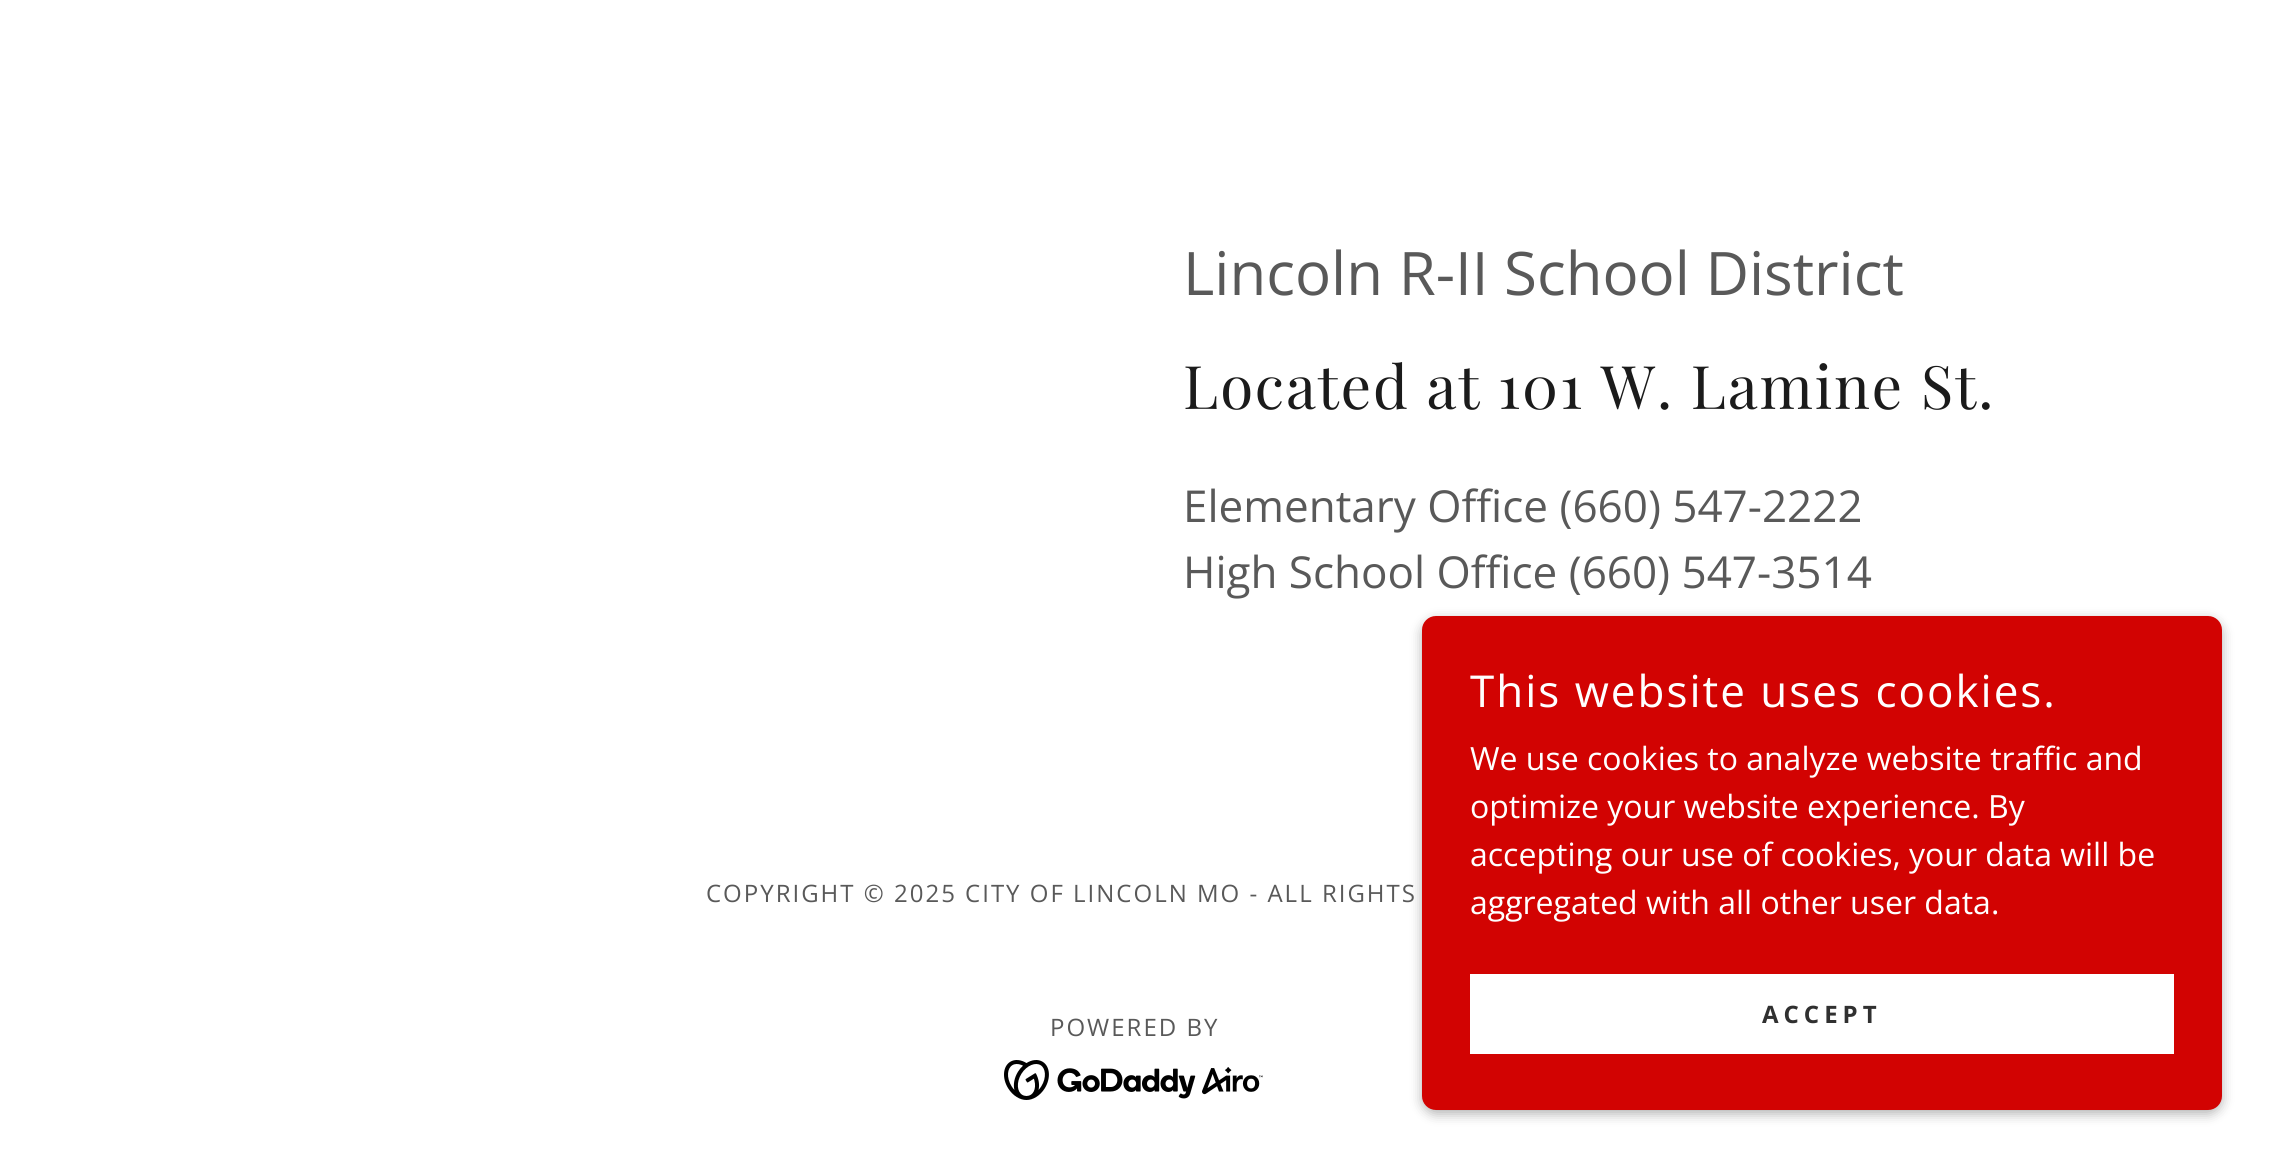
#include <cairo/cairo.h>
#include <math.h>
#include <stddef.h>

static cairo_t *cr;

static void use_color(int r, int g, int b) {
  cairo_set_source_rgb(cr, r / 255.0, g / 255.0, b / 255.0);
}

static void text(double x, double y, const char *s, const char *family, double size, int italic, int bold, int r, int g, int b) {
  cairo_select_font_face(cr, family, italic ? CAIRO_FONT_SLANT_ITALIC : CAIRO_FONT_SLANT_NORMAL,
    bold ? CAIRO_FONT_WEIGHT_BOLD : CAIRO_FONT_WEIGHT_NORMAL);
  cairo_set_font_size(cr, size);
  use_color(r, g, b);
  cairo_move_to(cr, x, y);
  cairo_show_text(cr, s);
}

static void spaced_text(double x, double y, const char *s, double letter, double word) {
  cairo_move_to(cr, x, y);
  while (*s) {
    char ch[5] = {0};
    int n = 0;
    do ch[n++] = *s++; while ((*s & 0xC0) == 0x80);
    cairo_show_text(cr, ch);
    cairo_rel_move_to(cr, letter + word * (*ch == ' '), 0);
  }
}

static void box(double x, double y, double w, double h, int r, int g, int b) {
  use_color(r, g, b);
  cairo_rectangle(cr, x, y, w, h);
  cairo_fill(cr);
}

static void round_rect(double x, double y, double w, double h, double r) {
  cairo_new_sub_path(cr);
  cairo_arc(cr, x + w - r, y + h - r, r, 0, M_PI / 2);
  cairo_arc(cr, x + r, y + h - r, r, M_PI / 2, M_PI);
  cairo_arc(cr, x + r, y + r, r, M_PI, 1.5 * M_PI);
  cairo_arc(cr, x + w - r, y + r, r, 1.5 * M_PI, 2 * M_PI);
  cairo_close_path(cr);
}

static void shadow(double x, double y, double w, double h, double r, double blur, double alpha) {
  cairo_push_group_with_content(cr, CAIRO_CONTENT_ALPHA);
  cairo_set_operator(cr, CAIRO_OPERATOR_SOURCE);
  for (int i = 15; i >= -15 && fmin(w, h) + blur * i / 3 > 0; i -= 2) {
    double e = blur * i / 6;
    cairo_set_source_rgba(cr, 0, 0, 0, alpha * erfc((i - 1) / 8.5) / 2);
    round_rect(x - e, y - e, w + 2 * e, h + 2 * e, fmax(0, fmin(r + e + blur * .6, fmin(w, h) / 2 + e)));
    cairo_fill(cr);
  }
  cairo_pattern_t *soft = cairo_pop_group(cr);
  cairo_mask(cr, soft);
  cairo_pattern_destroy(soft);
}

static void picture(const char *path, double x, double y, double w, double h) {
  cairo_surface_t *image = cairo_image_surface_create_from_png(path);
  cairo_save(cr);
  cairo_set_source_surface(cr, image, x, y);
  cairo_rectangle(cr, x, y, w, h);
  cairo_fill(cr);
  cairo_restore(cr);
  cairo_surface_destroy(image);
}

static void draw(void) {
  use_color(255, 255, 255);
  cairo_paint(cr);
  picture("img_01.png", 1004, 1060, 259, 40);
  use_color(0, 0, 0);
  shadow(1422, 620, 800, 494, 14, 6, 0.3);
  use_color(210, 3, 2);
  round_rect(1422, 616, 800, 494, 14);
  cairo_fill(cr);
  box(1470, 974, 704, 80, 255, 255, 255);
  text(1183, 295, "Lincoln R-II School District", "Open Sans", 60, 0, 0, 89, 89, 89);
  cairo_select_font_face(cr, "Playfair Display", CAIRO_FONT_SLANT_NORMAL, CAIRO_FONT_WEIGHT_NORMAL);
  use_color(27, 27, 27);
  spaced_text(1183, 409, "Located at 101 W. Lamine St.", 1.85, 0);
  text(1183, 522, "Elementary Office (660) 547-2222", "Open Sans", 44, 0, 0, 89, 89, 89);
  text(1183, 588, "High School Office (660) 547-3514", "Open Sans", 44, 0, 0, 89, 89, 89);
  cairo_set_font_size(cr, 24);
  spaced_text(706, 902, "COPYRIGHT © 2025 CITY OF LINCOLN MO - ALL RIGHTS", 2, 0);
  spaced_text(1050, 1036, "POWERED BY", 2, 0);
  cairo_set_font_size(cr, 44);
  use_color(255, 255, 255);
  spaced_text(1470, 707, "This website uses cookies.", 2, 0);
  text(1470, 770, "We use cookies to analyze website traffic and", "Open Sans", 32, 0, 0, 255, 255, 255);
  text(1470, 818, "optimize your website experience. By", "Open Sans", 32, 0, 0, 255, 255, 255);
  text(1470, 866, "accepting our use of cookies, your data will be", "Open Sans", 32, 0, 0, 255, 255, 255);
  text(1470, 914, "aggregated with all other user data.", "Open Sans", 32, 0, 0, 255, 255, 255);
  cairo_select_font_face(cr, "Open Sans", CAIRO_FONT_SLANT_NORMAL, CAIRO_FONT_WEIGHT_BOLD);
  cairo_set_font_size(cr, 24);
  use_color(48, 48, 48);
  spaced_text(1762, 1023, "ACCEPT", 5, 0);
}

int main(void) {
  cairo_surface_t *surface = cairo_image_surface_create(CAIRO_FORMAT_RGB24, 2269, 1157);
  cr = cairo_create(surface);
  cairo_font_options_t *options = cairo_font_options_create();
  cairo_font_options_set_hint_metrics(options, CAIRO_HINT_METRICS_OFF);
  cairo_font_options_set_hint_style(options, CAIRO_HINT_STYLE_NONE);
  cairo_set_font_options(cr, options);
  cairo_set_miter_limit(cr, 4);
  draw();
  cairo_surface_write_to_png(surface, "out.png");
  cairo_font_options_destroy(options);
  cairo_destroy(cr);
  cairo_surface_destroy(surface);
  return 0;
}
